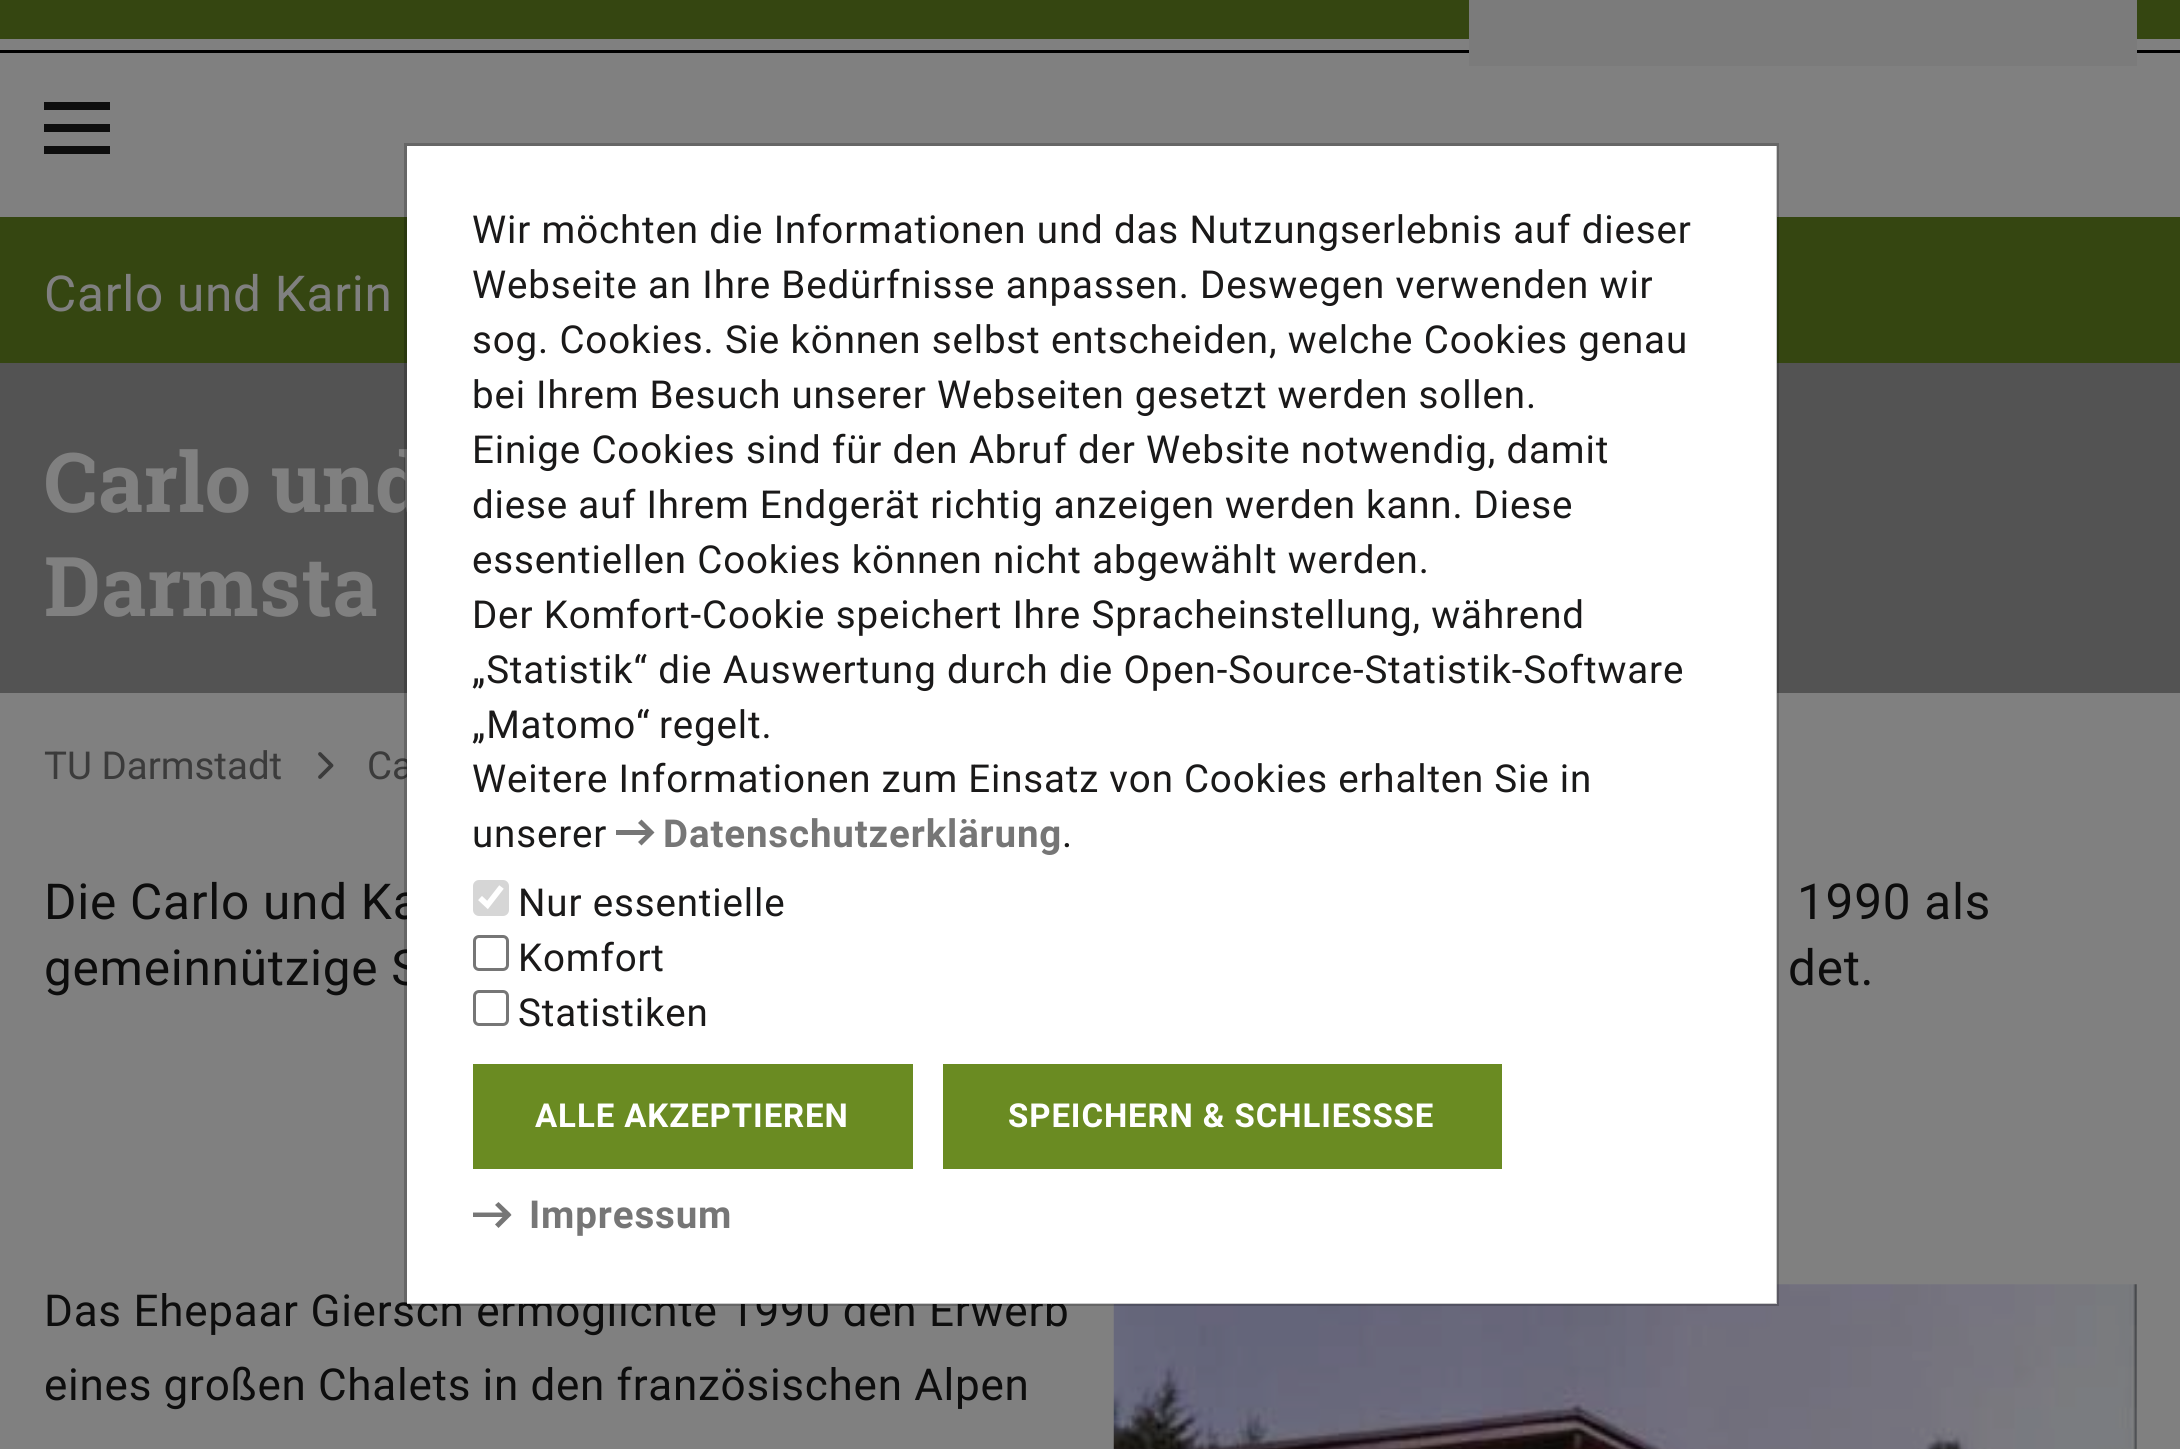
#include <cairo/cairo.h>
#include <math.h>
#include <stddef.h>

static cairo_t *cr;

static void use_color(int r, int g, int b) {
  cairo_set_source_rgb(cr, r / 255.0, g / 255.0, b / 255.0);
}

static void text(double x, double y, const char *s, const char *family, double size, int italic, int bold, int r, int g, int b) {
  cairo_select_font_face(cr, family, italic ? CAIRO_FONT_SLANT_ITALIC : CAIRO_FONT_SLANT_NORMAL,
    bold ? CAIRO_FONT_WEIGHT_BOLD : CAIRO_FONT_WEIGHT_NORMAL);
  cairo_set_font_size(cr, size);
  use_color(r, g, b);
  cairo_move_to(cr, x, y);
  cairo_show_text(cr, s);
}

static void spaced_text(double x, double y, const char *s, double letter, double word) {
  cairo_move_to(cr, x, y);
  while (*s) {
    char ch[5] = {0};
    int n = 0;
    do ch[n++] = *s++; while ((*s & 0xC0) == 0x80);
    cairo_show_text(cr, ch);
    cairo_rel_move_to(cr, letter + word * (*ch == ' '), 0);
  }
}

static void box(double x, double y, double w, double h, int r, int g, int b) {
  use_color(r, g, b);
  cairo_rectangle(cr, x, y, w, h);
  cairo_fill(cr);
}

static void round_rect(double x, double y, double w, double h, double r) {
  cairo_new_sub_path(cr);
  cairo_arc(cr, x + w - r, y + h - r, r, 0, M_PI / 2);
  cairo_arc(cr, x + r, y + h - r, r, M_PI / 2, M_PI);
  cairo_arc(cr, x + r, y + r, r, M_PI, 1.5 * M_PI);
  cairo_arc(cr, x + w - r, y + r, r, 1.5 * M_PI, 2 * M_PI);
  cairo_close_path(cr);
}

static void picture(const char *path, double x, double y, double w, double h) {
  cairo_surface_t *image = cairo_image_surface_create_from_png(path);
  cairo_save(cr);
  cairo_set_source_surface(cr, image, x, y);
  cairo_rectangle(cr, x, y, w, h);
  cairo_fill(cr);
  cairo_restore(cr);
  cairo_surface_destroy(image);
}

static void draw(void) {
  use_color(128, 128, 128);
  cairo_paint(cr);
  box(0, 0, 2180, 39, 53, 70, 17);
  box(0, 50, 2180, 3, 0, 0, 0);
  box(1469, 0, 668, 66, 123, 123, 123);
  box(44, 124, 66, 8, 13, 13, 13);
  box(44, 102, 66, 8, 13, 13, 13);
  box(44, 146, 66, 8, 13, 13, 13);
  box(0, 217, 2180, 146, 53, 70, 17);
  box(0, 363, 2180, 330, 83, 83, 83);
  cairo_new_path(cr);
  cairo_move_to(cr, 320, 777);
  cairo_line_to(cr, 331.5, 765.5);
  cairo_line_to(cr, 320, 754);
  use_color(59, 59, 59);
  cairo_set_line_width(cr, 3.8);
  cairo_set_line_cap(cr, CAIRO_LINE_CAP_ROUND);
  cairo_set_line_join(cr, CAIRO_LINE_JOIN_ROUND);
  cairo_stroke(cr);
  picture("img_01.png", 1113, 1284, 1024, 165);
  cairo_select_font_face(cr, "Roboto", CAIRO_FONT_SLANT_NORMAL, CAIRO_FONT_WEIGHT_NORMAL);
  cairo_set_font_size(cr, 49.5);
  use_color(128, 128, 128);
  spaced_text(44, 311, "Carlo und Karin", 0.75, 0);
  cairo_select_font_face(cr, "Roboto Slab", CAIRO_FONT_SLANT_NORMAL, CAIRO_FONT_WEIGHT_BOLD);
  cairo_set_font_size(cr, 82.5);
  spaced_text(44, 512, "Carlo und", 0.25, -1);
  spaced_text(44, 616, "Darmsta", 0.25, 0);
  text(44, 779, "TU Darmstadt", "Roboto", 38.5, 0, 0, 59, 59, 59);
  text(367, 779, "Ca", "Roboto", 38.5, 0, 0, 59, 59, 59);
  cairo_set_font_size(cr, 49.5);
  use_color(13, 13, 13);
  spaced_text(44, 919, "Die Carlo und Ka", 0.75, 0);
  spaced_text(1797, 919, "1990 als", 0.75, 0);
  spaced_text(44, 985, "gemeinnützige S", 0.75, 0);
  spaced_text(1788, 985, "det.", 0.75, 0);
  cairo_set_font_size(cr, 44);
  spaced_text(44, 1326, "Das Ehepaar Giersch ermöglichte 1990 den Erwerb", 0.75, 0);
  box(407, 146, 1370, 1158, 255, 255, 255);
  cairo_rectangle(cr, 405.5, 144.5, 1372, 1160);
  cairo_set_source_rgba(cr, 0, 0, 0, 0.2);
  cairo_set_line_width(cr, 3);
  cairo_set_line_cap(cr, CAIRO_LINE_CAP_BUTT);
  cairo_set_line_join(cr, CAIRO_LINE_JOIN_MITER);
  cairo_stroke(cr);
  cairo_select_font_face(cr, "Roboto", CAIRO_FONT_SLANT_NORMAL, CAIRO_FONT_WEIGHT_BOLD);
  cairo_set_font_size(cr, 38.5);
  use_color(118, 118, 118);
  spaced_text(529, 1228, "Impressum", 0.85, 0);
  cairo_new_path(cr);
  cairo_move_to(cr, 510, 1213);
  cairo_line_to(cr, 511.5, 1215);
  cairo_line_to(cr, 510, 1213);
  cairo_line_to(cr, 511.5, 1215);
  cairo_line_to(cr, 498.5, 1228);
  cairo_line_to(cr, 495, 1224.5);
  cairo_line_to(cr, 502.5, 1217);
  cairo_line_to(cr, 473, 1217);
  cairo_line_to(cr, 473, 1212.5);
  cairo_line_to(cr, 502.5, 1212.5);
  cairo_line_to(cr, 495, 1205);
  cairo_line_to(cr, 498.5, 1202);
  cairo_close_path(cr);
  cairo_fill(cr);
  box(943, 1064, 559, 105, 106, 139, 34);
  cairo_set_font_size(cr, 33);
  use_color(255, 255, 255);
  spaced_text(1008, 1127, "SPEICHERN & SCHLIESSSE", 0.9, 0);
  box(473, 1064, 440, 105, 106, 139, 34);
  use_color(255, 255, 255);
  spaced_text(535, 1127, "ALLE AKZEPTIEREN", 0.9, 0);
  cairo_select_font_face(cr, "Roboto", CAIRO_FONT_SLANT_NORMAL, CAIRO_FONT_WEIGHT_NORMAL);
  cairo_set_font_size(cr, 38.5);
  use_color(26, 25, 25);
  spaced_text(518, 1026, "Statistiken", 0.85, 0);
  round_rect(474.5, 991.5, 33, 33, 4.5);
  use_color(118, 118, 118);
  cairo_stroke(cr);
  use_color(26, 25, 25);
  spaced_text(518, 971, "Komfort", 0.85, 0);
  round_rect(474.5, 936.5, 33, 33, 4.5);
  use_color(118, 118, 118);
  cairo_stroke(cr);
  use_color(26, 25, 25);
  spaced_text(518, 916, "Nur essentielle", 0.85, 0);
  use_color(214, 214, 214);
  round_rect(473, 880, 36, 36, 6);
  cairo_fill(cr);
  cairo_new_path(cr);
  cairo_move_to(cr, 480, 898);
  cairo_line_to(cr, 487.5, 905);
  cairo_line_to(cr, 501.5, 887);
  use_color(255, 255, 255);
  cairo_set_line_width(cr, 5.7);
  cairo_stroke(cr);
  use_color(26, 25, 25);
  spaced_text(1062, 847, ".", 0.85, 0);
  cairo_select_font_face(cr, "Roboto", CAIRO_FONT_SLANT_NORMAL, CAIRO_FONT_WEIGHT_BOLD);
  use_color(118, 118, 118);
  spaced_text(663, 847, "Datenschutzerklärung", 0.85, 0);
  cairo_new_path(cr);
  cairo_move_to(cr, 653, 831);
  cairo_line_to(cr, 654.5, 832.5);
  cairo_line_to(cr, 653, 831);
  cairo_line_to(cr, 654.5, 832.5);
  cairo_line_to(cr, 641.5, 845.5);
  cairo_line_to(cr, 638, 842);
  cairo_line_to(cr, 645.5, 835);
  cairo_line_to(cr, 616, 835);
  cairo_line_to(cr, 616, 830);
  cairo_line_to(cr, 645.5, 830);
  cairo_line_to(cr, 638, 823);
  cairo_line_to(cr, 641.5, 819.5);
  cairo_close_path(cr);
  cairo_fill(cr);
  cairo_select_font_face(cr, "Roboto", CAIRO_FONT_SLANT_NORMAL, CAIRO_FONT_WEIGHT_NORMAL);
  use_color(26, 25, 25);
  spaced_text(472, 847, "unserer", 0.85, 0);
  spaced_text(472, 792, "Weitere Informationen zum Einsatz von Cookies erhalten Sie in", 0.85, -0.25);
  spaced_text(472, 738, "„Matomo“ regelt.", 0.85, -2);
  spaced_text(472, 683, "„Statistik“ die Auswertung durch die Open-Source-Statistik-Software", 0.85, 0);
  spaced_text(472, 628, "Der Komfort-Cookie speichert Ihre Spracheinstellung, während", 0.85, 0);
  spaced_text(472, 573, "essentiellen Cookies können nicht abgewählt werden.", 0.85, 0);
  spaced_text(472, 518, "diese auf Ihrem Endgerät richtig anzeigen werden kann. Diese", 0.85, -0.25);
  spaced_text(472, 463, "Einige Cookies sind für den Abruf der Website notwendig, damit", 0.85, 0);
  spaced_text(472, 408, "bei Ihrem Besuch unserer Webseiten gesetzt werden sollen.", 0.85, -0.25);
  spaced_text(472, 353, "sog. Cookies. Sie können selbst entscheiden, welche Cookies genau", 0.85, 0);
  spaced_text(472, 298, "Webseite an Ihre Bedürfnisse anpassen. Deswegen verwenden wir", 0.85, 0);
  spaced_text(472, 243, "Wir möchten die Informationen und das Nutzungserlebnis auf dieser", 0.85, 0);
  cairo_set_font_size(cr, 44);
  use_color(13, 13, 13);
  spaced_text(44, 1400, "eines großen Chalets in den französischen Alpen", 0.75, -0.25);
}

int main(void) {
  cairo_surface_t *surface = cairo_image_surface_create(CAIRO_FORMAT_RGB24, 2180, 1449);
  cr = cairo_create(surface);
  cairo_font_options_t *options = cairo_font_options_create();
  cairo_font_options_set_hint_metrics(options, CAIRO_HINT_METRICS_OFF);
  cairo_font_options_set_hint_style(options, CAIRO_HINT_STYLE_NONE);
  cairo_set_font_options(cr, options);
  cairo_set_miter_limit(cr, 4);
  draw();
  cairo_surface_write_to_png(surface, "out.png");
  cairo_font_options_destroy(options);
  cairo_destroy(cr);
  cairo_surface_destroy(surface);
  return 0;
}
